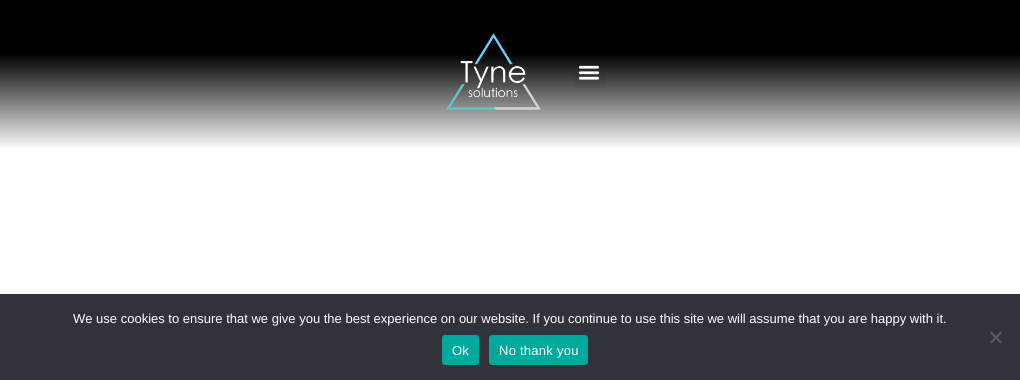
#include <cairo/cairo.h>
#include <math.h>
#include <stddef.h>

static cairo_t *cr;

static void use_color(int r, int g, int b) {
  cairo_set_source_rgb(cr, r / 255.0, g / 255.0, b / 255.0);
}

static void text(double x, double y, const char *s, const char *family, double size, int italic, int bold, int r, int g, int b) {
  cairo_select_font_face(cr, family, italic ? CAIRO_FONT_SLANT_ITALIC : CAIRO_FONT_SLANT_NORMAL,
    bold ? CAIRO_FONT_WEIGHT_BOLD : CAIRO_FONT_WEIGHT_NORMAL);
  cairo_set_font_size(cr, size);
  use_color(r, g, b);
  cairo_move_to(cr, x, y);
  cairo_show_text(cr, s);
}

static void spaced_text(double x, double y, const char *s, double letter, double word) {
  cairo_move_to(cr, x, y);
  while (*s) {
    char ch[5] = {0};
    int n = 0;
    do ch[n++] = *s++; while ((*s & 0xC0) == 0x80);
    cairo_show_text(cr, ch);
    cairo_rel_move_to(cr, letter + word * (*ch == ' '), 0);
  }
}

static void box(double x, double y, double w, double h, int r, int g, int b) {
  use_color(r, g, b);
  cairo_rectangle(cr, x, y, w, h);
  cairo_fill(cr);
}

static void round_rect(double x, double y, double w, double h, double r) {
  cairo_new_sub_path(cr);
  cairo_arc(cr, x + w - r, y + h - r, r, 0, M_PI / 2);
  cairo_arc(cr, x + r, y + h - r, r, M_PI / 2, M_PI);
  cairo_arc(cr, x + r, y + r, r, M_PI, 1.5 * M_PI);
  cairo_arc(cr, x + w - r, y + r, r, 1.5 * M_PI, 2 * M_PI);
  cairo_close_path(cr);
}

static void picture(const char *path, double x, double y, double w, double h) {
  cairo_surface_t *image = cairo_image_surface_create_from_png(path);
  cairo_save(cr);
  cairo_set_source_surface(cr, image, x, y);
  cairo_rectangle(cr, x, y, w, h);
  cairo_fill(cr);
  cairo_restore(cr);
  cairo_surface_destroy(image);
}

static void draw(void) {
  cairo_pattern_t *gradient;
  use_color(255, 255, 255);
  cairo_paint(cr);
  gradient = cairo_pattern_create_linear(510, 0, 510, 150);
  cairo_pattern_add_color_stop_rgba(gradient, 0.36, 0, 0, 0, 1);
  cairo_pattern_add_color_stop_rgba(gradient, 1, 1, 1, 1, 1);
  cairo_set_source(cr, gradient);
  cairo_pattern_destroy(gradient);
  cairo_rectangle(cr, 0, 0, 1020, 149);
  cairo_fill(cr);
  picture("img_01.png", 446, 33, 95, 77);
  cairo_set_source_rgba(cr, 0, 0, 0, 0.05);
  cairo_rectangle(cr, 573, 74, 33, 14);
  cairo_fill(cr);
  picture("img_02.png", 578, 65, 22, 15);
  box(0, 294, 1020, 86, 50, 50, 58);
  use_color(89, 89, 93);
  cairo_new_path(cr);
  cairo_move_to(cr, 1000.5, 331.5);
  cairo_line_to(cr, 1002, 333);
  cairo_line_to(cr, 991.5, 343.5);
  cairo_line_to(cr, 990, 342);
  cairo_close_path(cr);
  cairo_fill(cr);
  cairo_new_path(cr);
  cairo_move_to(cr, 990, 333);
  cairo_line_to(cr, 991.5, 331.5);
  cairo_line_to(cr, 1002, 342);
  cairo_line_to(cr, 1000.5, 343.5);
  cairo_close_path(cr);
  cairo_fill(cr);
  use_color(0, 169, 157);
  round_rect(442, 335, 37, 30, 3);
  cairo_fill(cr);
  round_rect(489, 335, 99, 30, 3);
  cairo_fill(cr);
  text(73, 323, "We use cookies to ensure that we give you the best experience on our website. If you continue to use this site we will assume that you are happy with it.", "Liberation Sans", 13, 0, 0, 255, 255, 255);
  spaced_text(452, 355, "Ok", 0.25, 0);
  spaced_text(499, 355, "No thank you", 0.25, 0);
}

int main(void) {
  cairo_surface_t *surface = cairo_image_surface_create(CAIRO_FORMAT_RGB24, 1020, 380);
  cr = cairo_create(surface);
  cairo_font_options_t *options = cairo_font_options_create();
  cairo_font_options_set_hint_metrics(options, CAIRO_HINT_METRICS_OFF);
  cairo_font_options_set_hint_style(options, CAIRO_HINT_STYLE_NONE);
  cairo_set_font_options(cr, options);
  cairo_set_miter_limit(cr, 4);
  draw();
  cairo_surface_write_to_png(surface, "out.png");
  cairo_font_options_destroy(options);
  cairo_destroy(cr);
  cairo_surface_destroy(surface);
  return 0;
}
